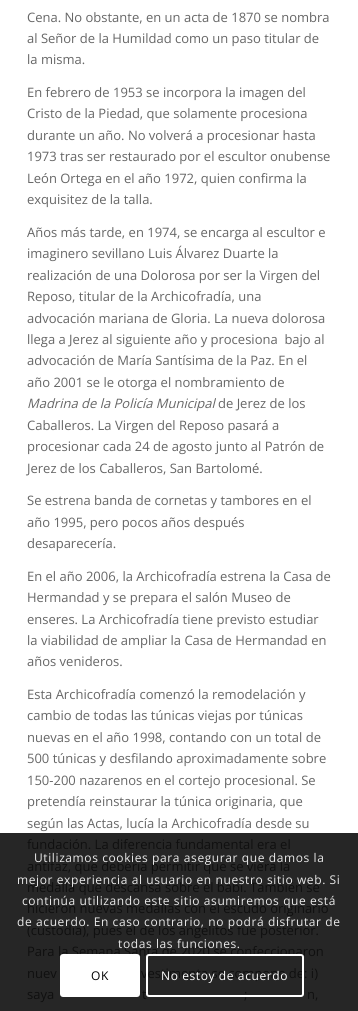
#include <cairo/cairo.h>
#include <math.h>
#include <stddef.h>

static cairo_t *cr;

static void use_color(int r, int g, int b) {
  cairo_set_source_rgb(cr, r / 255.0, g / 255.0, b / 255.0);
}

static void text(double x, double y, const char *s, const char *family, double size, int italic, int bold, int r, int g, int b) {
  cairo_select_font_face(cr, family, italic ? CAIRO_FONT_SLANT_ITALIC : CAIRO_FONT_SLANT_NORMAL,
    bold ? CAIRO_FONT_WEIGHT_BOLD : CAIRO_FONT_WEIGHT_NORMAL);
  cairo_set_font_size(cr, size);
  use_color(r, g, b);
  cairo_move_to(cr, x, y);
  cairo_show_text(cr, s);
}

static void spaced_text(double x, double y, const char *s, double letter, double word) {
  cairo_move_to(cr, x, y);
  while (*s) {
    char ch[5] = {0};
    int n = 0;
    do ch[n++] = *s++; while ((*s & 0xC0) == 0x80);
    cairo_show_text(cr, ch);
    cairo_rel_move_to(cr, letter + word * (*ch == ' '), 0);
  }
}

static void box(double x, double y, double w, double h, int r, int g, int b) {
  use_color(r, g, b);
  cairo_rectangle(cr, x, y, w, h);
  cairo_fill(cr);
}

static void round_rect(double x, double y, double w, double h, double r) {
  cairo_new_sub_path(cr);
  cairo_arc(cr, x + w - r, y + h - r, r, 0, M_PI / 2);
  cairo_arc(cr, x + r, y + h - r, r, M_PI / 2, M_PI);
  cairo_arc(cr, x + r, y + r, r, M_PI, 1.5 * M_PI);
  cairo_arc(cr, x + w - r, y + r, r, 1.5 * M_PI, 2 * M_PI);
  cairo_close_path(cr);
}

static void draw(void) {
  use_color(255, 255, 255);
  cairo_paint(cr);
  box(0, 833, 358, 178, 38, 38, 38);
  text(27, 22, "Cena. No obstante, en un acta de 1870 se nombra", "Open Sans", 13, 0, 0, 102, 102, 102);
  text(27, 43, "al Señor de la Humildad como un paso titular de", "Open Sans", 13, 0, 0, 102, 102, 102);
  text(27, 64, "la misma.", "Open Sans", 13, 0, 0, 102, 102, 102);
  text(27, 97, "En febrero de 1953 se incorpora la imagen del", "Open Sans", 13, 0, 0, 102, 102, 102);
  text(27, 118, "Cristo de la Piedad, que solamente procesiona", "Open Sans", 13, 0, 0, 102, 102, 102);
  text(27, 140, "durante un año. No volverá a procesionar hasta", "Open Sans", 13, 0, 0, 102, 102, 102);
  text(27, 161, "1973 tras ser restaurado por el escultor onubense", "Open Sans", 13, 0, 0, 102, 102, 102);
  text(27, 183, "León Ortega en el año 1972, quien confirma la", "Open Sans", 13, 0, 0, 102, 102, 102);
  text(27, 204, "exquisitez de la talla.", "Open Sans", 13, 0, 0, 102, 102, 102);
  text(27, 237, "Años más tarde, en 1974, se encarga al escultor e", "Open Sans", 13, 0, 0, 102, 102, 102);
  text(27, 258, "imaginero sevillano Luis Álvarez Duarte la", "Open Sans", 13, 0, 0, 102, 102, 102);
  text(27, 280, "realización de una Dolorosa por ser la Virgen del", "Open Sans", 13, 0, 0, 102, 102, 102);
  text(27, 301, "Reposo, titular de la Archicofradía, una", "Open Sans", 13, 0, 0, 102, 102, 102);
  text(27, 323, "advocación mariana de Gloria. La nueva dolorosa", "Open Sans", 13, 0, 0, 102, 102, 102);
  text(27, 344, "llega a Jerez al siguiente año y procesiona  bajo al", "Open Sans", 13, 0, 0, 102, 102, 102);
  text(27, 365, "advocación de María Santísima de la Paz. En el", "Open Sans", 13, 0, 0, 102, 102, 102);
  text(27, 387, "año 2001 se le otorga el nombramiento de", "Open Sans", 13, 0, 0, 102, 102, 102);
  text(27, 408, "Madrina de la Policía Municipal", "Open Sans", 13, 1, 0, 102, 102, 102);
  text(218, 408, "de Jerez de los", "Open Sans", 13, 0, 0, 102, 102, 102);
  text(27, 430, "Caballeros. La Virgen del Reposo pasará a", "Open Sans", 13, 0, 0, 102, 102, 102);
  text(27, 451, "procesionar cada 24 de agosto junto al Patrón de", "Open Sans", 13, 0, 0, 102, 102, 102);
  text(27, 473, "Jerez de los Caballeros, San Bartolomé.", "Open Sans", 13, 0, 0, 102, 102, 102);
  text(27, 505, "Se estrena banda de cornetas y tambores en el", "Open Sans", 13, 0, 0, 102, 102, 102);
  text(27, 527, "año 1995, pero pocos años después", "Open Sans", 13, 0, 0, 102, 102, 102);
  text(27, 548, "desaparecería.", "Open Sans", 13, 0, 0, 102, 102, 102);
  text(27, 581, "En el año 2006, la Archicofradía estrena la Casa de", "Open Sans", 13, 0, 0, 102, 102, 102);
  text(27, 602, "Hermandad y se prepara el salón Museo de", "Open Sans", 13, 0, 0, 102, 102, 102);
  text(27, 624, "enseres. La Archicofradía tiene previsto estudiar", "Open Sans", 13, 0, 0, 102, 102, 102);
  text(27, 645, "la viabilidad de ampliar la Casa de Hermandad en", "Open Sans", 13, 0, 0, 102, 102, 102);
  text(27, 666, "años venideros.", "Open Sans", 13, 0, 0, 102, 102, 102);
  text(27, 699, "Esta Archicofradía comenzó la remodelación y", "Open Sans", 13, 0, 0, 102, 102, 102);
  text(27, 720, "cambio de todas las túnicas viejas por túnicas", "Open Sans", 13, 0, 0, 102, 102, 102);
  text(27, 742, "nuevas en el año 1998, contando con un total de", "Open Sans", 13, 0, 0, 102, 102, 102);
  text(27, 763, "500 túnicas y desfilando aproximadamente sobre", "Open Sans", 13, 0, 0, 102, 102, 102);
  text(27, 785, "150-200 nazarenos en el cortejo procesional. Se", "Open Sans", 13, 0, 0, 102, 102, 102);
  text(27, 806, "pretendía reinstaurar la túnica originaria, que", "Open Sans", 13, 0, 0, 102, 102, 102);
  text(27, 828, "según las Actas, lucía la Archicofradía desde su", "Open Sans", 13, 0, 0, 102, 102, 102);
  text(27, 849, "fundación. La diferencia fundamental era el", "Open Sans", 13, 0, 0, 15, 15, 15);
  text(27, 871, "antifaz, que debería permitir que se viera la", "Open Sans", 13, 0, 0, 15, 15, 15);
  text(27, 892, "medalla que descansa sobre el babi. También se", "Open Sans", 13, 0, 0, 15, 15, 15);
  text(27, 913, "hicieron nuevas medallas con el escudo originario", "Open Sans", 13, 0, 0, 15, 15, 15);
  text(27, 935, "(custodia), pues el de los angelitos fue posterior.", "Open Sans", 13, 0, 0, 15, 15, 15);
  text(27, 956, "Para la Semana Santa de 2020 se confeccionaron", "Open Sans", 13, 0, 0, 15, 15, 15);
  text(27, 978, "nuev", "Open Sans", 13, 0, 0, 15, 15, 15);
  text(141, 978, "vestimenta se compone de: i)", "Open Sans", 13, 0, 0, 15, 15, 15);
  text(27, 999, "saya", "Open Sans", 13, 0, 0, 15, 15, 15);
  text(142, 999, "t", "Open Sans", 13, 0, 0, 15, 15, 15);
  text(244, 999, ";", "Open Sans", 13, 0, 0, 15, 15, 15);
  text(307, 999, "n,", "Open Sans", 13, 0, 0, 15, 15, 15);
  cairo_set_font_size(cr, 12);
  use_color(233, 233, 233);
  spaced_text(34, 862, "Utilizamos cookies para asegurar que damos la", 0.6, 0);
  spaced_text(17, 884, "mejor experiencia al usuario en nuestro sitio web. Si", 0.6, 0);
  spaced_text(22, 905, "continúa utilizando este sitio asumiremos que está", 0.6, 0);
  spaced_text(17, 926, "de acuerdo. En caso contrario, no podrá disfrutar de", 0.6, 0);
  spaced_text(118, 948, "todas las funciones.", 0.6, 0);
  use_color(255, 255, 255);
  round_rect(60, 954, 80, 43, 3);
  cairo_fill(cr);
  use_color(0, 0, 0);
  spaced_text(91, 980, "OK", 0.6, 0);
  round_rect(147, 955, 156, 41, 2);
  use_color(255, 255, 255);
  cairo_stroke(cr);
  spaced_text(161, 980, "No estoy de acuerdo", 0.6, 0);
}

int main(void) {
  cairo_surface_t *surface = cairo_image_surface_create(CAIRO_FORMAT_RGB24, 358, 1011);
  cr = cairo_create(surface);
  cairo_font_options_t *options = cairo_font_options_create();
  cairo_font_options_set_hint_metrics(options, CAIRO_HINT_METRICS_OFF);
  cairo_font_options_set_hint_style(options, CAIRO_HINT_STYLE_NONE);
  cairo_set_font_options(cr, options);
  cairo_set_miter_limit(cr, 4);
  draw();
  cairo_surface_write_to_png(surface, "out.png");
  cairo_font_options_destroy(options);
  cairo_destroy(cr);
  cairo_surface_destroy(surface);
  return 0;
}
